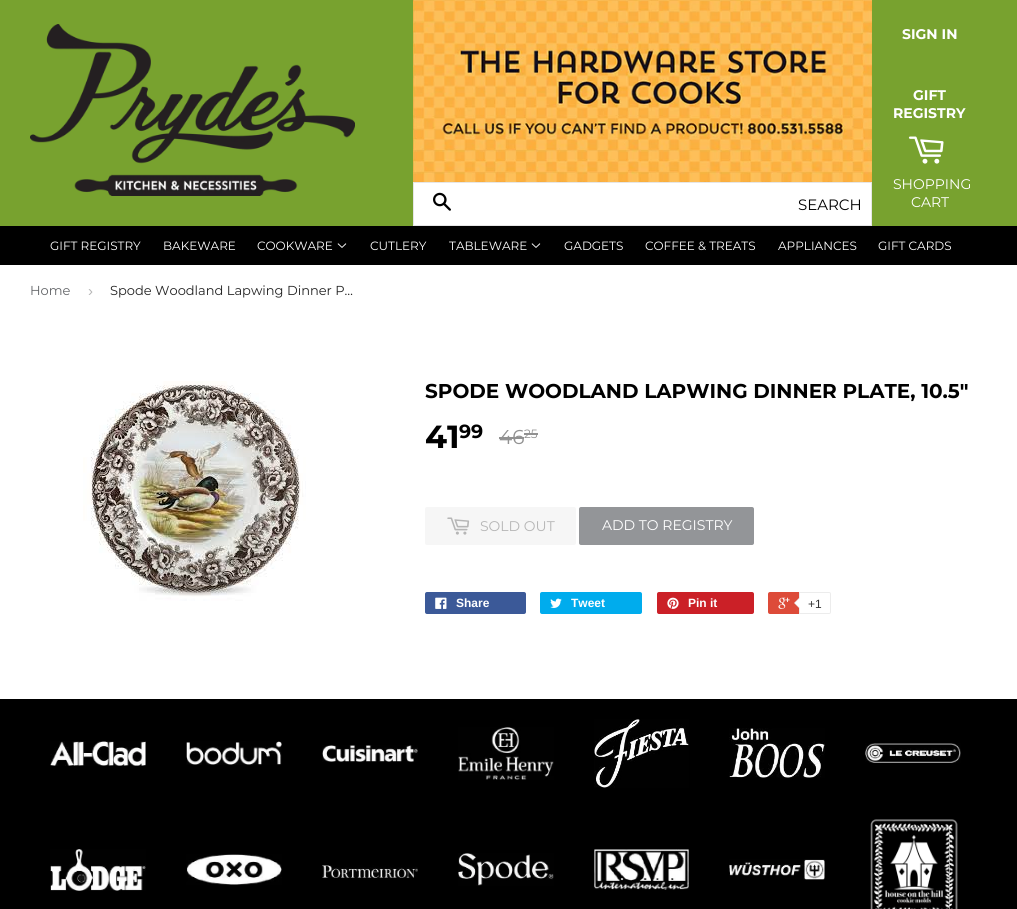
#include <cairo/cairo.h>
#include <math.h>
#include <stddef.h>

static cairo_t *cr;

static void use_color(int r, int g, int b) {
  cairo_set_source_rgb(cr, r / 255.0, g / 255.0, b / 255.0);
}

static void text(double x, double y, const char *s, const char *family, double size, int italic, int bold, int r, int g, int b) {
  cairo_select_font_face(cr, family, italic ? CAIRO_FONT_SLANT_ITALIC : CAIRO_FONT_SLANT_NORMAL,
    bold ? CAIRO_FONT_WEIGHT_BOLD : CAIRO_FONT_WEIGHT_NORMAL);
  cairo_set_font_size(cr, size);
  use_color(r, g, b);
  cairo_move_to(cr, x, y);
  cairo_show_text(cr, s);
}

static void box(double x, double y, double w, double h, int r, int g, int b) {
  use_color(r, g, b);
  cairo_rectangle(cr, x, y, w, h);
  cairo_fill(cr);
}

static void round_rect(double x, double y, double w, double h, double r) {
  cairo_new_sub_path(cr);
  cairo_arc(cr, x + w - r, y + h - r, r, 0, M_PI / 2);
  cairo_arc(cr, x + r, y + h - r, r, M_PI / 2, M_PI);
  cairo_arc(cr, x + r, y + r, r, M_PI, 1.5 * M_PI);
  cairo_arc(cr, x + w - r, y + r, r, 1.5 * M_PI, 2 * M_PI);
  cairo_close_path(cr);
}

static void picture(const char *path, double x, double y, double w, double h) {
  cairo_surface_t *image = cairo_image_surface_create_from_png(path);
  cairo_save(cr);
  cairo_set_source_surface(cr, image, x, y);
  cairo_rectangle(cr, x, y, w, h);
  cairo_fill(cr);
  cairo_restore(cr);
  cairo_surface_destroy(image);
}

static void draw(void) {
  use_color(255, 255, 255);
  cairo_paint(cr);
  box(0, 0, 1017, 226, 120, 162, 47);
  picture("img_01.png", 30, 24, 325, 172);
  picture("img_02.png", 413, 0, 459, 182);
  use_color(255, 255, 255);
  cairo_rectangle(cr, 413.5, 182.5, 458, 43);
  cairo_fill_preserve(cr);
  use_color(230, 230, 230);
  cairo_set_line_width(cr, 1);
  cairo_stroke(cr);
  picture("img_03.png", 433, 192, 18, 19);
  picture("img_04.png", 908, 136, 36, 28);
  box(0, 226, 1017, 39, 0, 0, 0);
  picture("img_05.png", 337, 243, 10, 5);
  picture("img_05.png", 531, 243, 10, 5);
  picture("img_06.png", 83, 381, 223, 220);
  box(499, 437, 25, 2, 145, 145, 145);
  box(524, 433, 14, 2, 145, 145, 145);
  use_color(246, 246, 246);
  round_rect(425, 507, 151, 38, 2);
  cairo_fill(cr);
  picture("img_07.png", 447, 517, 23, 18);
  use_color(147, 149, 152);
  round_rect(579, 507, 175, 38, 2);
  cairo_fill(cr);
  use_color(59, 89, 152);
  round_rect(425, 592, 101, 22, 2);
  cairo_fill(cr);
  picture("img_08.png", 435, 597, 12, 12);
  use_color(0, 172, 237);
  round_rect(540, 592, 102, 22, 2);
  cairo_fill(cr);
  picture("img_09.png", 550, 598, 12, 10);
  use_color(203, 32, 39);
  round_rect(657, 592, 97, 22, 2);
  cairo_fill(cr);
  picture("img_10.png", 667, 597, 12, 12);
  use_color(221, 75, 57);
  round_rect(768, 592, 61, 22, 2);
  cairo_fill(cr);
  picture("img_11.png", 778, 597, 12, 12);
  use_color(255, 255, 255);
  cairo_new_path(cr);
  cairo_move_to(cr, 799.5, 592.5);
  cairo_line_to(cr, 829, 592.5);
  cairo_curve_to(cr, 830, 592.5, 830.5, 593, 830.5, 594);
  cairo_line_to(cr, 830.5, 612);
  cairo_curve_to(cr, 830.5, 613, 830, 613.5, 829, 613.5);
  cairo_line_to(cr, 799.5, 613.5);
  cairo_close_path(cr);
  cairo_fill_preserve(cr);
  use_color(236, 236, 236);
  cairo_stroke(cr);
  cairo_new_path(cr);
  cairo_move_to(cr, 800, 597);
  cairo_line_to(cr, 800, 609);
  cairo_line_to(cr, 794, 603);
  cairo_close_path(cr);
  cairo_fill(cr);
  use_color(255, 255, 255);
  cairo_new_path(cr);
  cairo_move_to(cr, 801, 597);
  cairo_line_to(cr, 801, 609);
  cairo_line_to(cr, 795, 603);
  cairo_close_path(cr);
  cairo_fill(cr);
  box(0, 699, 1017, 210, 0, 0, 0);
  picture("img_12.png", 50, 741, 96, 25);
  picture("img_13.png", 186, 741, 96, 24);
  picture("img_14.png", 322, 745, 96, 17);
  picture("img_15.png", 458, 727, 96, 53);
  picture("img_16.png", 594, 719, 95, 69);
  picture("img_17.png", 729, 728, 96, 50);
  picture("img_18.png", 865, 743, 96, 20);
  picture("img_19.png", 50, 849, 96, 42);
  picture("img_20.png", 186, 854, 96, 31);
  picture("img_21.png", 322, 865, 96, 13);
  picture("img_22.png", 458, 853, 96, 33);
  picture("img_23.png", 594, 849, 95, 41);
  picture("img_24.png", 729, 859, 96, 21);
  picture("img_25.png", 870, 819, 88, 90);
  text(902, 39, "SIGN IN", "Montserrat", 14, 0, 1, 255, 255, 255);
  text(913, 100, "GIFT", "Montserrat", 14, 0, 1, 255, 255, 255);
  text(893, 118, "REGISTRY", "Montserrat", 14, 0, 1, 255, 255, 255);
  text(798, 210, "SEARCH", "Montserrat", 15, 0, 0, 0, 0, 0);
  text(893, 189, "SHOPPING", "Montserrat", 14, 0, 0, 255, 255, 255);
  text(911, 207, "CART", "Montserrat", 14, 0, 0, 255, 255, 255);
  text(50, 250, "GIFT REGISTRY", "Montserrat", 12, 0, 0, 255, 255, 255);
  text(163, 250, "BAKEWARE", "Montserrat", 12, 0, 0, 255, 255, 255);
  text(257, 250, "COOKWARE", "Montserrat", 12, 0, 0, 255, 255, 255);
  text(370, 250, "CUTLERY", "Montserrat", 12, 0, 0, 255, 255, 255);
  text(449, 250, "TABLEWARE", "Montserrat", 12, 0, 0, 255, 255, 255);
  text(564, 250, "GADGETS", "Montserrat", 12, 0, 0, 255, 255, 255);
  text(645, 250, "COFFEE & TREATS", "Montserrat", 12, 0, 0, 255, 255, 255);
  text(778, 250, "APPLIANCES", "Montserrat", 12, 0, 0, 255, 255, 255);
  text(878, 250, "GIFT CARDS", "Montserrat", 12, 0, 0, 255, 255, 255);
  text(30, 295, "Home", "Montserrat", 13, 0, 0, 99, 101, 104);
  text(88, 296, "›", "Liberation Sans", 15, 0, 0, 182, 182, 182);
  text(110, 295, "Spode Woodland Lapwing Dinner P…", "Montserrat", 13, 0, 0, 34, 34, 34);
  text(425, 398, "SPODE WOODLAND LAPWING DINNER PLATE, 10.5\"", "Montserrat", 20, 0, 1, 0, 0, 0);
  text(425, 448, "41", "Montserrat", 32, 0, 1, 0, 0, 0);
  text(459, 438, "99", "Montserrat", 19, 0, 1, 0, 0, 0);
  text(499, 444, "46", "Montserrat", 20, 0, 0, 145, 145, 145);
  text(524, 438, "25", "Montserrat", 12, 0, 0, 145, 145, 145);
  text(480, 531, "SOLD OUT", "Montserrat", 14, 0, 0, 182, 182, 182);
  text(602, 530, "ADD TO REGISTRY", "Montserrat", 14, 0, 0, 255, 255, 255);
  text(456, 607, "Share", "Liberation Sans", 12, 0, 1, 255, 255, 255);
  text(571, 607, "Tweet", "Liberation Sans", 12, 0, 1, 255, 255, 255);
  text(688, 607, "Pin it", "Liberation Sans", 12, 0, 1, 255, 255, 255);
  text(808, 608, "+1", "Liberation Sans", 12, 0, 0, 51, 51, 51);
}

int main(void) {
  cairo_surface_t *surface = cairo_image_surface_create(CAIRO_FORMAT_RGB24, 1017, 909);
  cr = cairo_create(surface);
  cairo_font_options_t *options = cairo_font_options_create();
  cairo_font_options_set_hint_metrics(options, CAIRO_HINT_METRICS_OFF);
  cairo_font_options_set_hint_style(options, CAIRO_HINT_STYLE_NONE);
  cairo_set_font_options(cr, options);
  cairo_set_miter_limit(cr, 4);
  draw();
  cairo_surface_write_to_png(surface, "out.png");
  cairo_font_options_destroy(options);
  cairo_destroy(cr);
  cairo_surface_destroy(surface);
  return 0;
}
